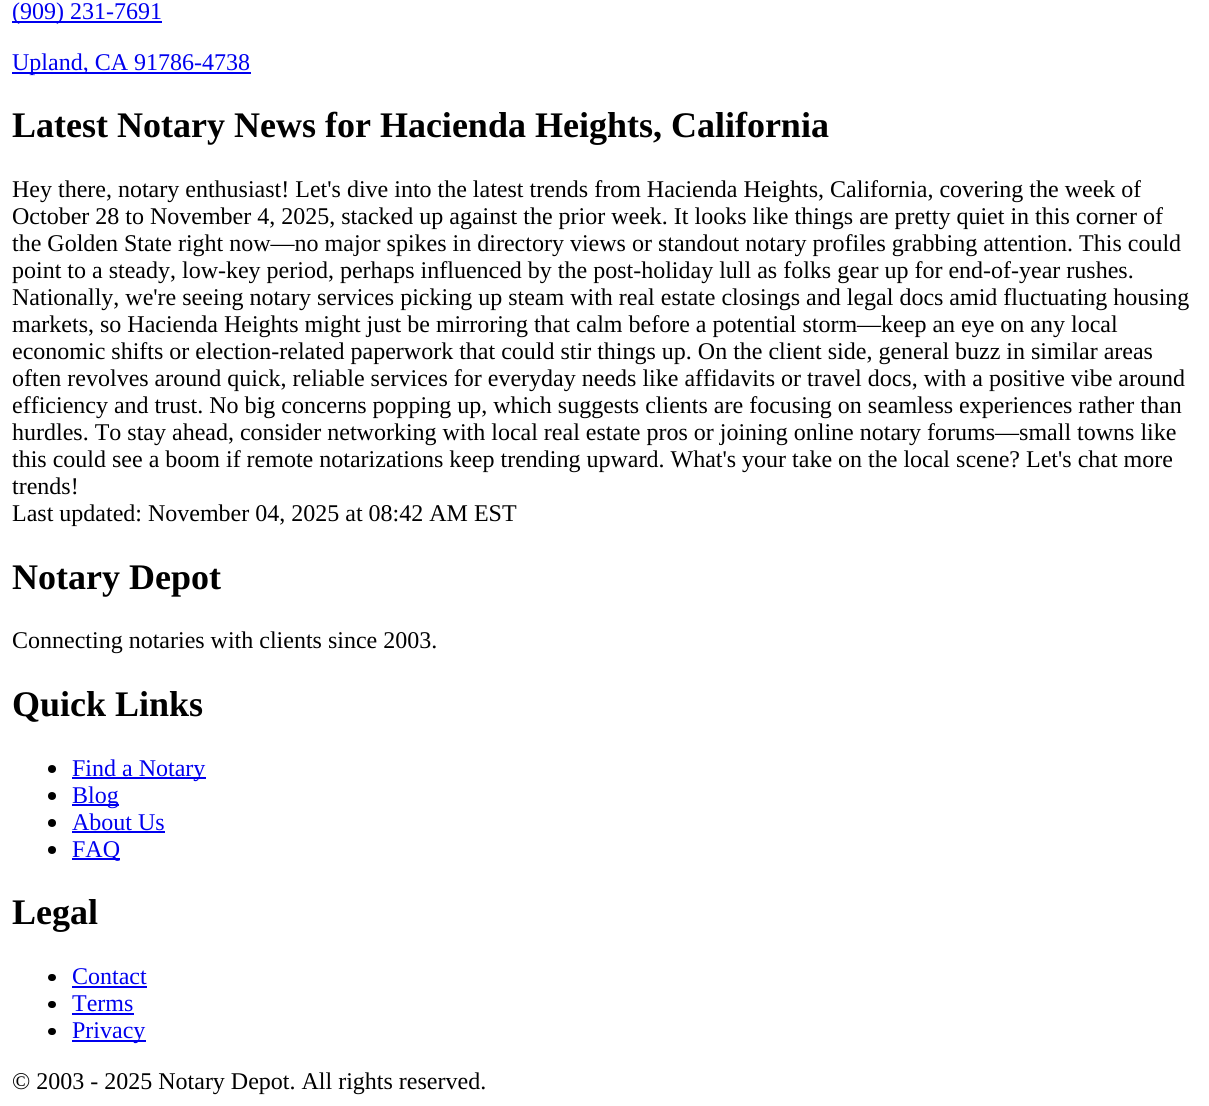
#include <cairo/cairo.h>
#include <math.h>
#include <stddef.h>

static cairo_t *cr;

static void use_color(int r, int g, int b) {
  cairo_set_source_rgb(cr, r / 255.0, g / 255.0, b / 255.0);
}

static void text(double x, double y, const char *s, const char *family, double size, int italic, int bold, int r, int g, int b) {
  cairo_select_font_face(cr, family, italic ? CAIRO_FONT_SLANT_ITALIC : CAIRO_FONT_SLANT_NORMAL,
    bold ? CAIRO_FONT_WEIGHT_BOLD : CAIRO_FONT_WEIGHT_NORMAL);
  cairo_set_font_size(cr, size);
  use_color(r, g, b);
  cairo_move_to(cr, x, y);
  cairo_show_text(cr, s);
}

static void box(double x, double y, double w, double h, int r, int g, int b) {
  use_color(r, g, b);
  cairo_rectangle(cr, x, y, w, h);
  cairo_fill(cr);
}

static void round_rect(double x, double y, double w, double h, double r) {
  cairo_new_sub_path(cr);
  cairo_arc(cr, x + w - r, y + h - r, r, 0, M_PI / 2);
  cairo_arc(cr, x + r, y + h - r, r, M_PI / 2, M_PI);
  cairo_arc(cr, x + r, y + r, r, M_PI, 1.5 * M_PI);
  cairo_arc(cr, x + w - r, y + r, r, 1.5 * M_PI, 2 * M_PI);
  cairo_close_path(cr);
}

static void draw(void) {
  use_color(255, 255, 255);
  cairo_paint(cr);
  box(12, 21, 150, 2, 0, 0, 238);
  box(12, 72, 239, 2, 0, 0, 238);
  use_color(0, 0, 0);
  cairo_arc(cr, 52, 769, 4, 0, 2 * M_PI);
  cairo_fill(cr);
  box(72, 777, 134, 2, 0, 0, 238);
  use_color(0, 0, 0);
  cairo_arc(cr, 52, 796, 4, 0, 2 * M_PI);
  cairo_fill(cr);
  box(72, 804, 47, 2, 0, 0, 238);
  use_color(0, 0, 0);
  cairo_arc(cr, 52, 823, 4, 0, 2 * M_PI);
  cairo_fill(cr);
  box(72, 831, 93, 2, 0, 0, 238);
  use_color(0, 0, 0);
  cairo_arc(cr, 52, 850, 4, 0, 2 * M_PI);
  cairo_fill(cr);
  box(72, 858, 48, 2, 0, 0, 238);
  use_color(0, 0, 0);
  round_rect(48, 974, 8, 7, 3.5);
  cairo_fill(cr);
  box(72, 986, 75, 2, 0, 0, 238);
  use_color(0, 0, 0);
  round_rect(48, 1001, 8, 7, 3.5);
  cairo_fill(cr);
  box(72, 1013, 62, 2, 0, 0, 238);
  use_color(0, 0, 0);
  round_rect(48, 1028, 8, 7, 3.5);
  cairo_fill(cr);
  box(72, 1040, 74, 2, 0, 0, 238);
  text(12, 19, "(909) 231-7691", "Liberation Serif", 24, 0, 0, 0, 0, 238);
  text(12, 70, "Upland, CA 91786-4738", "Liberation Serif", 24, 0, 0, 0, 0, 238);
  text(12, 137, "Latest Notary News for Hacienda Heights, California", "Liberation Serif", 36, 0, 1, 0, 0, 0);
  text(12, 197, "Hey there, notary enthusiast! Let's dive into the latest trends from Hacienda Heights, California, covering the week of", "Liberation Serif", 24, 0, 0, 0, 0, 0);
  text(12, 224, "October 28 to November 4, 2025, stacked up against the prior week. It looks like things are pretty quiet in this corner of", "Liberation Serif", 24, 0, 0, 0, 0, 0);
  text(12, 251, "the Golden State right now—no major spikes in directory views or standout notary profiles grabbing attention. This could", "Liberation Serif", 24, 0, 0, 0, 0, 0);
  text(12, 278, "point to a steady, low-key period, perhaps influenced by the post-holiday lull as folks gear up for end-of-year rushes.", "Liberation Serif", 24, 0, 0, 0, 0, 0);
  text(12, 305, "Nationally, we're seeing notary services picking up steam with real estate closings and legal docs amid fluctuating housing", "Liberation Serif", 24, 0, 0, 0, 0, 0);
  text(12, 332, "markets, so Hacienda Heights might just be mirroring that calm before a potential storm—keep an eye on any local", "Liberation Serif", 24, 0, 0, 0, 0, 0);
  text(12, 359, "economic shifts or election-related paperwork that could stir things up. On the client side, general buzz in similar areas", "Liberation Serif", 24, 0, 0, 0, 0, 0);
  text(12, 386, "often revolves around quick, reliable services for everyday needs like affidavits or travel docs, with a positive vibe around", "Liberation Serif", 24, 0, 0, 0, 0, 0);
  text(12, 413, "efficiency and trust. No big concerns popping up, which suggests clients are focusing on seamless experiences rather than", "Liberation Serif", 24, 0, 0, 0, 0, 0);
  text(12, 440, "hurdles. To stay ahead, consider networking with local real estate pros or joining online notary forums—small towns like", "Liberation Serif", 24, 0, 0, 0, 0, 0);
  text(12, 467, "this could see a boom if remote notarizations keep trending upward. What's your take on the local scene? Let's chat more", "Liberation Serif", 24, 0, 0, 0, 0, 0);
  text(12, 494, "trends!", "Liberation Serif", 24, 0, 0, 0, 0, 0);
  text(12, 521, "Last updated: November 04, 2025 at 08:42 AM EST", "Liberation Serif", 24, 0, 0, 0, 0, 0);
  text(12, 589, "Notary Depot", "Liberation Serif", 36, 0, 1, 0, 0, 0);
  text(12, 648, "Connecting notaries with clients since 2003.", "Liberation Serif", 24, 0, 0, 0, 0, 0);
  text(12, 716, "Quick Links", "Liberation Serif", 36, 0, 1, 0, 0, 0);
  text(72, 776, "Find a Notary", "Liberation Serif", 24, 0, 0, 0, 0, 238);
  text(72, 803, "Blog", "Liberation Serif", 24, 0, 0, 0, 0, 238);
  text(72, 830, "About Us", "Liberation Serif", 24, 0, 0, 0, 0, 238);
  text(72, 857, "FAQ", "Liberation Serif", 24, 0, 0, 0, 0, 238);
  text(12, 924, "Legal", "Liberation Serif", 36, 0, 1, 0, 0, 0);
  text(72, 984, "Contact", "Liberation Serif", 24, 0, 0, 0, 0, 238);
  text(72, 1011, "Terms", "Liberation Serif", 24, 0, 0, 0, 0, 238);
  text(72, 1038, "Privacy", "Liberation Serif", 24, 0, 0, 0, 0, 238);
  text(12, 1089, "© 2003 - 2025 Notary Depot. All rights reserved.", "Liberation Serif", 24, 0, 0, 0, 0, 0);
}

int main(void) {
  cairo_surface_t *surface = cairo_image_surface_create(CAIRO_FORMAT_RGB24, 1209, 1106);
  cr = cairo_create(surface);
  cairo_font_options_t *options = cairo_font_options_create();
  cairo_font_options_set_hint_metrics(options, CAIRO_HINT_METRICS_OFF);
  cairo_font_options_set_hint_style(options, CAIRO_HINT_STYLE_NONE);
  cairo_set_font_options(cr, options);
  cairo_set_miter_limit(cr, 4);
  draw();
  cairo_surface_write_to_png(surface, "out.png");
  cairo_font_options_destroy(options);
  cairo_destroy(cr);
  cairo_surface_destroy(surface);
  return 0;
}
